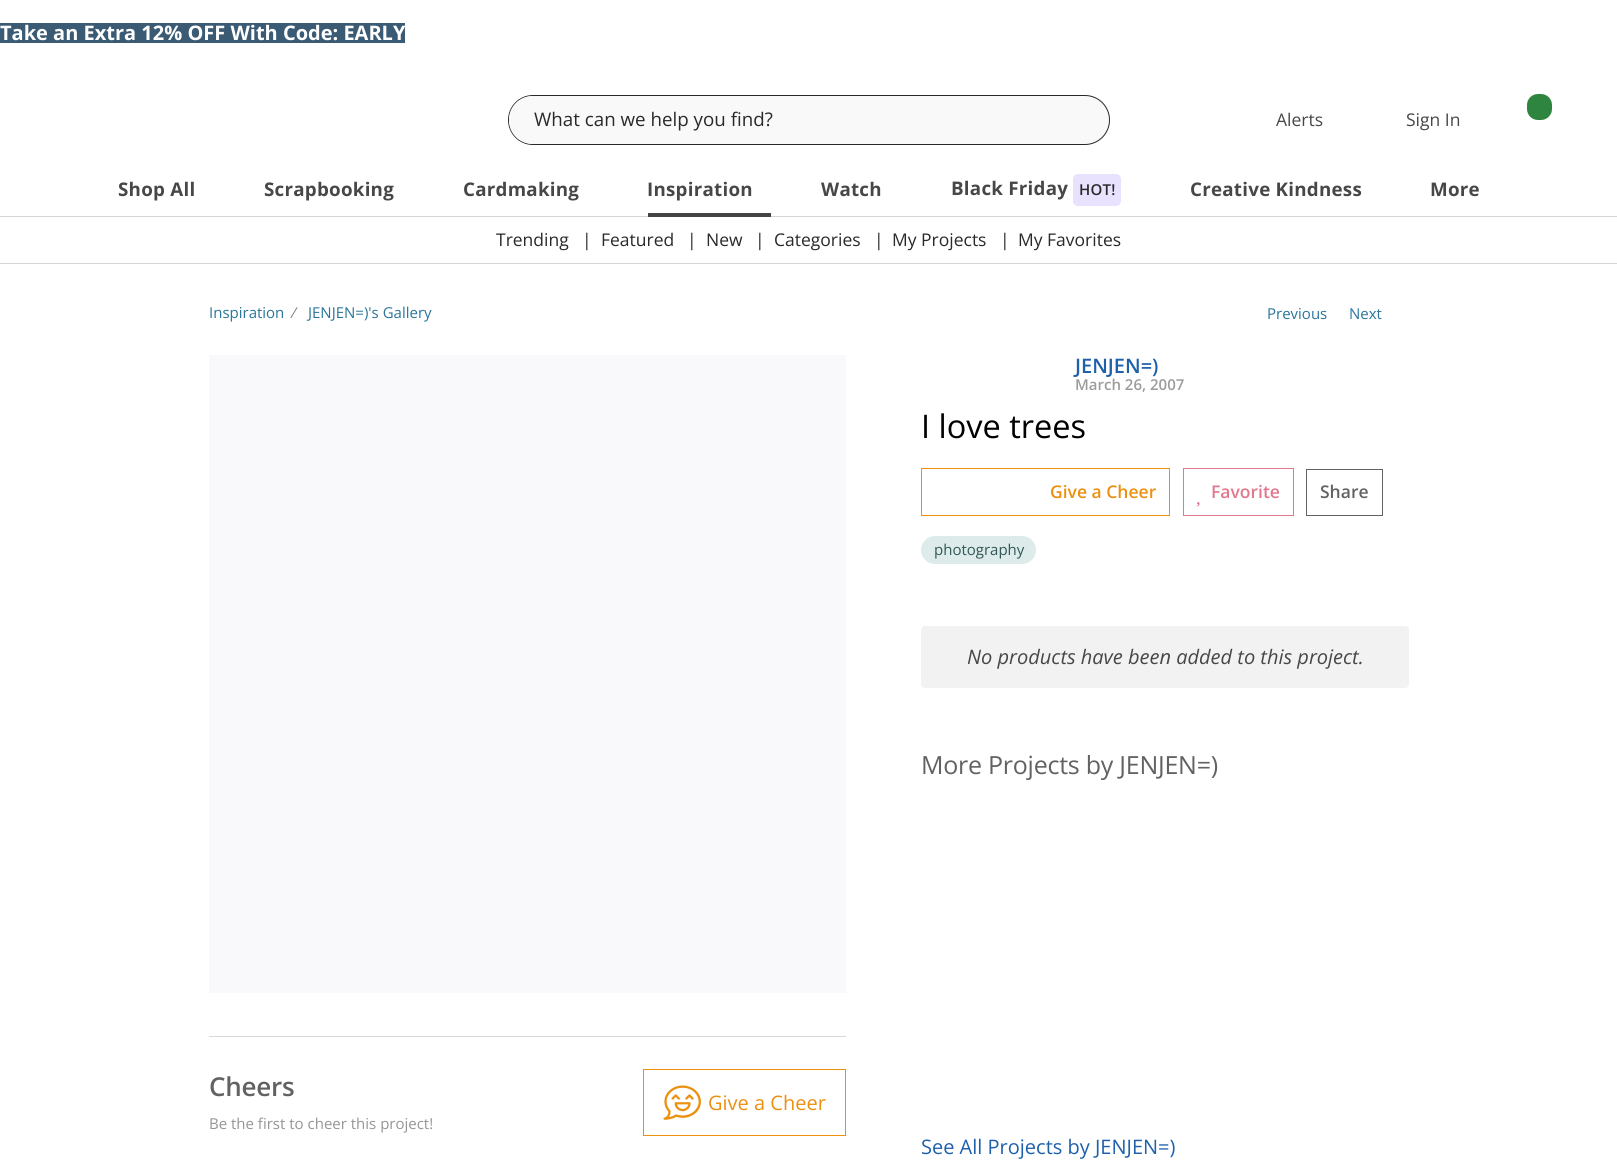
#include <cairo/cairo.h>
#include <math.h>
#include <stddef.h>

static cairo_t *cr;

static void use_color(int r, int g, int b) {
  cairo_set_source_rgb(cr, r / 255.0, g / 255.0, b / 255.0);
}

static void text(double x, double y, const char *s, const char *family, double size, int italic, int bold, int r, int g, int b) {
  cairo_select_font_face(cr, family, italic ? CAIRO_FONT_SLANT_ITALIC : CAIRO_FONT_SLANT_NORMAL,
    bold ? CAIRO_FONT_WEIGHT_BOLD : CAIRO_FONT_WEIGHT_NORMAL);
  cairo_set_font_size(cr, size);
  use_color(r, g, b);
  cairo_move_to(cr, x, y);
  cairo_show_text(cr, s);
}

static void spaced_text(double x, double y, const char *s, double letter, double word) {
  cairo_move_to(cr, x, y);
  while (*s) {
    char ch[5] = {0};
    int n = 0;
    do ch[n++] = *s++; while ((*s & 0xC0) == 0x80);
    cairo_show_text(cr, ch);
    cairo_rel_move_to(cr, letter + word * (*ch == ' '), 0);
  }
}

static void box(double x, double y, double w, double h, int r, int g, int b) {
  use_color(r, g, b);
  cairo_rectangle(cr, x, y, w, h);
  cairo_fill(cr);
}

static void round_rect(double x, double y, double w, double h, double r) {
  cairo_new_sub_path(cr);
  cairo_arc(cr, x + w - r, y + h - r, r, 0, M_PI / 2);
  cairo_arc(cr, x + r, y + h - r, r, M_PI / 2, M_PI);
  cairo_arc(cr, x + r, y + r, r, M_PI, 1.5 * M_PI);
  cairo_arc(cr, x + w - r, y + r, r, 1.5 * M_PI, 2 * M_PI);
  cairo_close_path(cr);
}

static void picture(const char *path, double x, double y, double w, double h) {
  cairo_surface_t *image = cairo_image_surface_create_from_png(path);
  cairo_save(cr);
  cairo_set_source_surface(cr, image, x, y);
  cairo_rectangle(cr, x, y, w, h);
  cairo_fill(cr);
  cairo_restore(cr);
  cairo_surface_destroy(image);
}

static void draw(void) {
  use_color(255, 255, 255);
  cairo_paint(cr);
  box(0, 23, 405, 20, 58, 91, 115);
  use_color(249, 249, 249);
  round_rect(508.5, 95.5, 601, 49, 24.5);
  cairo_fill_preserve(cr);
  use_color(41, 41, 41);
  cairo_set_line_width(cr, 1);
  cairo_stroke(cr);
  use_color(249, 249, 249);
  cairo_new_path(cr);
  cairo_move_to(cr, 533, 96);
  cairo_line_to(cr, 1066, 96);
  cairo_line_to(cr, 1066, 144);
  cairo_line_to(cr, 533, 144);
  cairo_curve_to(cr, 519.5, 144, 509, 133.5, 509, 120);
  cairo_curve_to(cr, 509, 106.5, 519.5, 96, 533, 96);
  cairo_close_path(cr);
  cairo_fill(cr);
  use_color(46, 133, 63);
  round_rect(1525.5, 92.5, 28, 29, 12.5);
  cairo_fill_preserve(cr);
  use_color(255, 255, 255);
  cairo_set_line_width(cr, 3);
  cairo_stroke(cr);
  box(0, 216, 1617, 1, 213, 213, 213);
  box(648, 213, 123, 4, 68, 68, 68);
  use_color(233, 226, 255);
  round_rect(1073, 174, 48, 32, 5);
  cairo_fill(cr);
  box(0, 263, 1617, 1, 213, 213, 213);
  box(209, 355, 637, 638, 249, 248, 250);
  box(209, 1036, 637, 1, 216, 216, 216);
  cairo_rectangle(cr, 643.5, 1069.5, 202, 66);
  use_color(236, 144, 16);
  cairo_set_line_width(cr, 1);
  cairo_stroke(cr);
  picture("img_01.png", 663, 1085, 38, 35);
  cairo_rectangle(cr, 921.5, 468.5, 248, 47);
  cairo_stroke(cr);
  cairo_rectangle(cr, 1183.5, 468.5, 110, 47);
  use_color(225, 120, 140);
  cairo_stroke(cr);
  picture("img_02.png", 1196, 502, 4, 5);
  cairo_rectangle(cr, 1306.5, 469.5, 76, 46);
  use_color(98, 98, 98);
  cairo_stroke(cr);
  use_color(221, 235, 234);
  round_rect(921, 536, 115, 28, 14);
  cairo_fill(cr);
  use_color(242, 242, 242);
  round_rect(921, 626, 488, 62, 4);
  cairo_fill(cr);
  text(0, 40, "Take an Extra 12% OFF With Code: EARLY", "Open Sans", 20, 0, 1, 255, 255, 255);
  text(534, 126, "What can we help you find?", "Open Sans", 18.75, 0, 0, 41, 41, 41);
  text(1276, 126, "Alerts", "Open Sans", 17.5, 0, 0, 71, 71, 71);
  text(1406, 126, "Sign In", "Open Sans", 17.5, 0, 0, 71, 71, 71);
  cairo_select_font_face(cr, "Open Sans", CAIRO_FONT_SLANT_NORMAL, CAIRO_FONT_WEIGHT_BOLD);
  cairo_set_font_size(cr, 18.75);
  spaced_text(118, 196, "Shop All", 0.25, 0);
  spaced_text(264, 196, "Scrapbooking", 0.25, 0);
  spaced_text(463, 196, "Cardmaking", 0.25, 0);
  spaced_text(647, 196, "Inspiration", 0.25, 0);
  spaced_text(821, 196, "Watch", 0.25, 0);
  spaced_text(951, 195, "Black Friday", 0.25, 0);
  cairo_select_font_face(cr, "Open Sans SemiBold", CAIRO_FONT_SLANT_NORMAL, CAIRO_FONT_WEIGHT_NORMAL);
  cairo_set_font_size(cr, 15);
  use_color(41, 41, 41);
  spaced_text(1079, 195, "HOT!", 0.25, 0);
  cairo_select_font_face(cr, "Open Sans", CAIRO_FONT_SLANT_NORMAL, CAIRO_FONT_WEIGHT_BOLD);
  cairo_set_font_size(cr, 18.75);
  use_color(71, 71, 71);
  spaced_text(1190, 196, "Creative Kindness", 0.25, 0);
  spaced_text(1430, 196, "More", 0.25, 0);
  text(496, 246, "Trending", "Open Sans", 17.5, 0, 0, 41, 41, 41);
  text(582, 246, "|", "Open Sans", 17.5, 0, 0, 41, 41, 41);
  text(601, 246, "Featured", "Open Sans", 17.5, 0, 0, 41, 41, 41);
  text(687, 246, "|", "Open Sans", 17.5, 0, 0, 41, 41, 41);
  text(706, 246, "New", "Open Sans", 17.5, 0, 0, 41, 41, 41);
  text(755, 246, "|", "Open Sans", 17.5, 0, 0, 41, 41, 41);
  text(774, 246, "Categories", "Open Sans", 17.5, 0, 0, 41, 41, 41);
  text(874, 246, "|", "Open Sans", 17.5, 0, 0, 41, 41, 41);
  text(892, 246, "My Projects", "Open Sans", 17.5, 0, 0, 41, 41, 41);
  text(1000, 246, "|", "Open Sans", 17.5, 0, 0, 41, 41, 41);
  text(1018, 246, "My Favorites", "Open Sans", 17.5, 0, 0, 41, 41, 41);
  text(209, 318, "Inspiration", "Open Sans", 15, 0, 0, 41, 117, 155);
  text(293, 318, "⁄", "Open Sans", 15, 0, 0, 118, 112, 129);
  text(308, 318, "JENJEN=)'s Gallery", "Open Sans", 15, 0, 0, 41, 117, 155);
  text(1267, 319, "Previous", "Open Sans", 15, 0, 0, 41, 117, 155);
  text(1349, 319, "Next", "Open Sans", 15, 0, 0, 41, 117, 155);
  cairo_select_font_face(cr, "Open Sans SemiBold", CAIRO_FONT_SLANT_NORMAL, CAIRO_FONT_WEIGHT_NORMAL);
  cairo_set_font_size(cr, 26);
  use_color(98, 98, 98);
  spaced_text(209, 1096, "Cheers", -0.25, 0);
  text(209, 1129, "Be the first to cheer this project!", "Open Sans", 15, 0, 0, 149, 149, 149);
  text(708, 1110, "Give a Cheer", "Open Sans", 20, 0, 0, 236, 144, 16);
  text(1075, 373, "JENJEN=)", "Open Sans SemiBold", 20, 0, 0, 30, 96, 171);
  text(1075, 390, "March 26, 2007", "Open Sans SemiBold", 15, 0, 0, 156, 156, 156);
  text(921, 438, "I love trees", "Open Sans", 32.5, 0, 0, 0, 0, 0);
  text(1050, 498, "Give a Cheer", "Open Sans SemiBold", 17.5, 0, 0, 236, 144, 16);
  text(1211, 498, "Favorite", "Open Sans SemiBold", 17.5, 0, 0, 225, 120, 140);
  text(1320, 498, "Share", "Open Sans SemiBold", 17.5, 0, 0, 98, 98, 98);
  text(934, 555, "photography", "Open Sans", 15, 0, 0, 49, 88, 87);
  text(967, 664, "No products have been added to this project.", "Open Sans", 20, 1, 0, 71, 71, 71);
  cairo_select_font_face(cr, "Open Sans", CAIRO_FONT_SLANT_NORMAL, CAIRO_FONT_WEIGHT_NORMAL);
  cairo_set_font_size(cr, 25);
  use_color(98, 98, 98);
  spaced_text(921, 774, "More Projects by JENJEN=)", -0.25, 0);
  text(921, 1154, "See All Projects by JENJEN=)", "Open Sans", 20, 0, 0, 30, 96, 171);
}

int main(void) {
  cairo_surface_t *surface = cairo_image_surface_create(CAIRO_FORMAT_RGB24, 1617, 1169);
  cr = cairo_create(surface);
  cairo_font_options_t *options = cairo_font_options_create();
  cairo_font_options_set_hint_metrics(options, CAIRO_HINT_METRICS_OFF);
  cairo_font_options_set_hint_style(options, CAIRO_HINT_STYLE_NONE);
  cairo_set_font_options(cr, options);
  cairo_set_miter_limit(cr, 4);
  draw();
  cairo_surface_write_to_png(surface, "out.png");
  cairo_font_options_destroy(options);
  cairo_destroy(cr);
  cairo_surface_destroy(surface);
  return 0;
}
